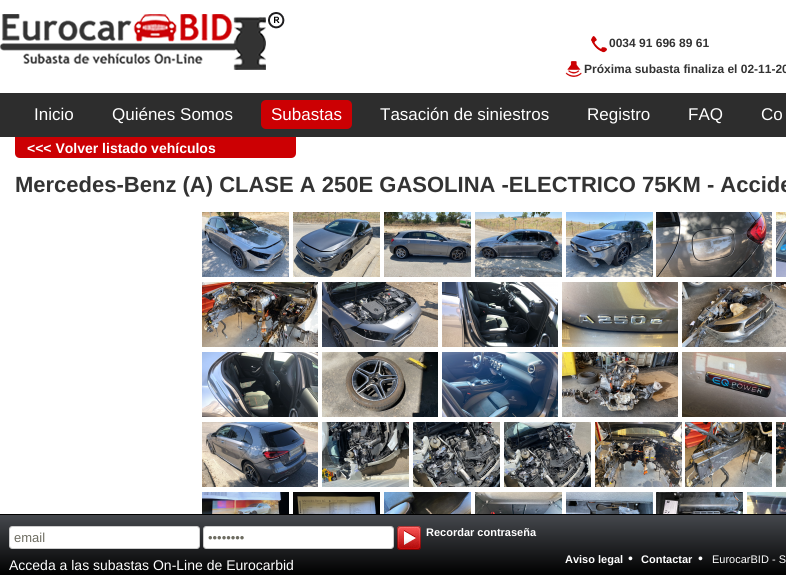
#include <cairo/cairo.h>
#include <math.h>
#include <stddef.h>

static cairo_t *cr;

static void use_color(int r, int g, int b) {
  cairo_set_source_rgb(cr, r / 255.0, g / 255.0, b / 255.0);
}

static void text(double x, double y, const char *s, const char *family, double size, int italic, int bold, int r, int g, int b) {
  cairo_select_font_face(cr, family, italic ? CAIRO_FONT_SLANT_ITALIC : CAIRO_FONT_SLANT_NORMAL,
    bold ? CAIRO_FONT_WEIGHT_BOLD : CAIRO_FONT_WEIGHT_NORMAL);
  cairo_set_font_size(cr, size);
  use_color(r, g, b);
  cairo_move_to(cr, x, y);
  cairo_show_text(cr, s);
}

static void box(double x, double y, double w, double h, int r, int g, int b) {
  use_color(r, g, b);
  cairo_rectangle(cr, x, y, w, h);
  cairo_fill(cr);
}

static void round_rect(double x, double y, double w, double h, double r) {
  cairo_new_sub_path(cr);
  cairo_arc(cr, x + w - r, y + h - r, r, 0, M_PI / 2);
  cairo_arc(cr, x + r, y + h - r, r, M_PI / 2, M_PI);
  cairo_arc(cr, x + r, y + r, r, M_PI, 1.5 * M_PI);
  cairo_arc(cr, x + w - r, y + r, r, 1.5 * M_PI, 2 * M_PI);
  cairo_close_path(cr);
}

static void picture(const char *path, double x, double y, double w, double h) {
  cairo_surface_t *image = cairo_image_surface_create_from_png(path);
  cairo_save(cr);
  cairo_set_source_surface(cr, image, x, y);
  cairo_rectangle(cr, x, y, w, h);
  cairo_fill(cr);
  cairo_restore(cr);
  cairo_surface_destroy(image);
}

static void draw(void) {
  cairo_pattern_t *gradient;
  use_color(255, 255, 255);
  cairo_paint(cr);
  picture("img_01.png", 0, 12, 285, 58);
  picture("img_02.png", 591, 36, 16, 17);
  picture("img_03.png", 565, 61, 17, 16);
  box(0, 93, 786, 44, 45, 45, 45);
  use_color(204, 0, 3);
  round_rect(261, 100, 91, 29, 5);
  cairo_fill(cr);
  cairo_new_path(cr);
  cairo_move_to(cr, 15, 137);
  cairo_line_to(cr, 296, 137);
  cairo_line_to(cr, 296, 153);
  cairo_curve_to(cr, 296, 156, 294, 158, 291, 158);
  cairo_line_to(cr, 20, 158);
  cairo_curve_to(cr, 17, 158, 15, 156, 15, 153);
  cairo_close_path(cr);
  cairo_fill(cr);
  picture("img_04.png", 202, 212, 87, 65);
  picture("img_05.png", 293, 212, 87, 65);
  picture("img_06.png", 384, 212, 87, 65);
  picture("img_07.png", 475, 212, 87, 65);
  picture("img_08.png", 566, 212, 87, 65);
  picture("img_09.png", 656, 212, 116, 65);
  picture("img_10.png", 776, 212, 10, 65);
  picture("img_11.png", 202, 282, 116, 65);
  picture("img_12.png", 322, 282, 116, 65);
  picture("img_13.png", 442, 282, 116, 65);
  picture("img_14.png", 562, 282, 116, 65);
  picture("img_15.png", 682, 282, 104, 65);
  picture("img_16.png", 202, 352, 116, 65);
  picture("img_17.png", 322, 352, 116, 65);
  picture("img_18.png", 442, 352, 116, 65);
  picture("img_19.png", 562, 352, 116, 65);
  picture("img_20.png", 682, 352, 104, 65);
  picture("img_21.png", 202, 422, 116, 65);
  picture("img_22.png", 322, 422, 87, 65);
  picture("img_23.png", 413, 422, 87, 65);
  picture("img_24.png", 504, 422, 87, 65);
  picture("img_25.png", 595, 422, 87, 65);
  picture("img_26.png", 685, 422, 87, 65);
  picture("img_27.png", 776, 422, 10, 65);
  picture("img_28.png", 202, 492, 87, 22);
  picture("img_29.png", 293, 492, 87, 22);
  picture("img_30.png", 384, 492, 87, 22);
  picture("img_31.png", 475, 492, 87, 22);
  picture("img_32.png", 566, 492, 87, 22);
  picture("img_33.png", 656, 492, 87, 22);
  picture("img_34.png", 747, 492, 39, 22);
  gradient = cairo_pattern_create_linear(393, 455, 393, 515);
  cairo_pattern_add_color_stop_rgba(gradient, 0, 0.271, 0.282, 0.302, 1);
  cairo_pattern_add_color_stop_rgba(gradient, 1, 0, 0, 0, 1);
  cairo_set_source(cr, gradient);
  cairo_pattern_destroy(gradient);
  cairo_rectangle(cr, 0, 514, 786, 1);
  cairo_fill(cr);
  gradient = cairo_pattern_create_linear(393, 515, 393, 575);
  cairo_pattern_add_color_stop_rgba(gradient, 0, 0.271, 0.282, 0.302, 1);
  cairo_pattern_add_color_stop_rgba(gradient, 1, 0, 0, 0, 1);
  cairo_set_source(cr, gradient);
  cairo_pattern_destroy(gradient);
  cairo_rectangle(cr, 0, 515, 786, 60);
  cairo_fill(cr);
  picture("img_35.png", 9, 526, 191, 23);
  picture("img_35.png", 203, 526, 191, 23);
  picture("img_36.png", 397, 526, 24, 24);
  text(609, 47, "0034 91 696 89 61", "Liberation Sans", 12, 0, 1, 51, 51, 51);
  text(584, 73, "Próxima subasta finaliza el 02-11-20", "Liberation Sans", 12, 0, 1, 51, 51, 51);
  text(34, 120, "Inicio", "Liberation Sans", 17, 0, 0, 255, 255, 255);
  text(112, 120, "Quiénes Somos", "Liberation Sans", 17, 0, 0, 255, 255, 255);
  text(271, 120, "Subastas", "Liberation Sans", 17, 0, 0, 255, 255, 255);
  text(380, 120, "Tasación de siniestros", "Liberation Sans", 17, 0, 0, 255, 255, 255);
  text(587, 120, "Registro", "Liberation Sans", 17, 0, 0, 255, 255, 255);
  text(688, 120, "FAQ", "Liberation Sans", 17, 0, 0, 255, 255, 255);
  text(761, 120, "Co", "Liberation Sans", 17, 0, 0, 255, 255, 255);
  text(27, 153, "<<< Volver listado vehículos", "Liberation Sans", 14, 0, 1, 255, 255, 255);
  text(15, 192, "Mercedes-Benz (A) CLASE A 250E GASOLINA -ELECTRICO 75KM - Accide", "Liberation Sans", 22, 0, 1, 51, 51, 51);
  text(14, 542, "email", "Liberation Sans", 13, 0, 0, 109, 108, 97);
  text(208, 542, "••••••••", "Liberation Sans", 13, 0, 0, 109, 108, 97);
  text(426, 536, "Recordar contraseña", "Liberation Sans", 11, 0, 1, 255, 255, 255);
  text(9, 570, "Acceda a las subastas On-Line de Eurocarbid", "Liberation Sans", 14, 0, 0, 255, 255, 255);
  text(565, 563, "Aviso legal", "Liberation Sans", 11, 0, 1, 255, 255, 255);
  text(628, 563, "•", "Liberation Sans", 14, 0, 0, 255, 255, 255);
  text(641, 563, "Contactar", "Liberation Sans", 11, 0, 1, 255, 255, 255);
  text(698, 563, "•", "Liberation Sans", 14, 0, 0, 255, 255, 255);
  text(712, 563, "EurocarBID - S", "Liberation Sans", 11, 0, 0, 255, 255, 255);
}

int main(void) {
  cairo_surface_t *surface = cairo_image_surface_create(CAIRO_FORMAT_RGB24, 786, 575);
  cr = cairo_create(surface);
  cairo_font_options_t *options = cairo_font_options_create();
  cairo_font_options_set_hint_metrics(options, CAIRO_HINT_METRICS_OFF);
  cairo_font_options_set_hint_style(options, CAIRO_HINT_STYLE_NONE);
  cairo_set_font_options(cr, options);
  cairo_set_miter_limit(cr, 4);
  draw();
  cairo_surface_write_to_png(surface, "out.png");
  cairo_font_options_destroy(options);
  cairo_destroy(cr);
  cairo_surface_destroy(surface);
  return 0;
}
